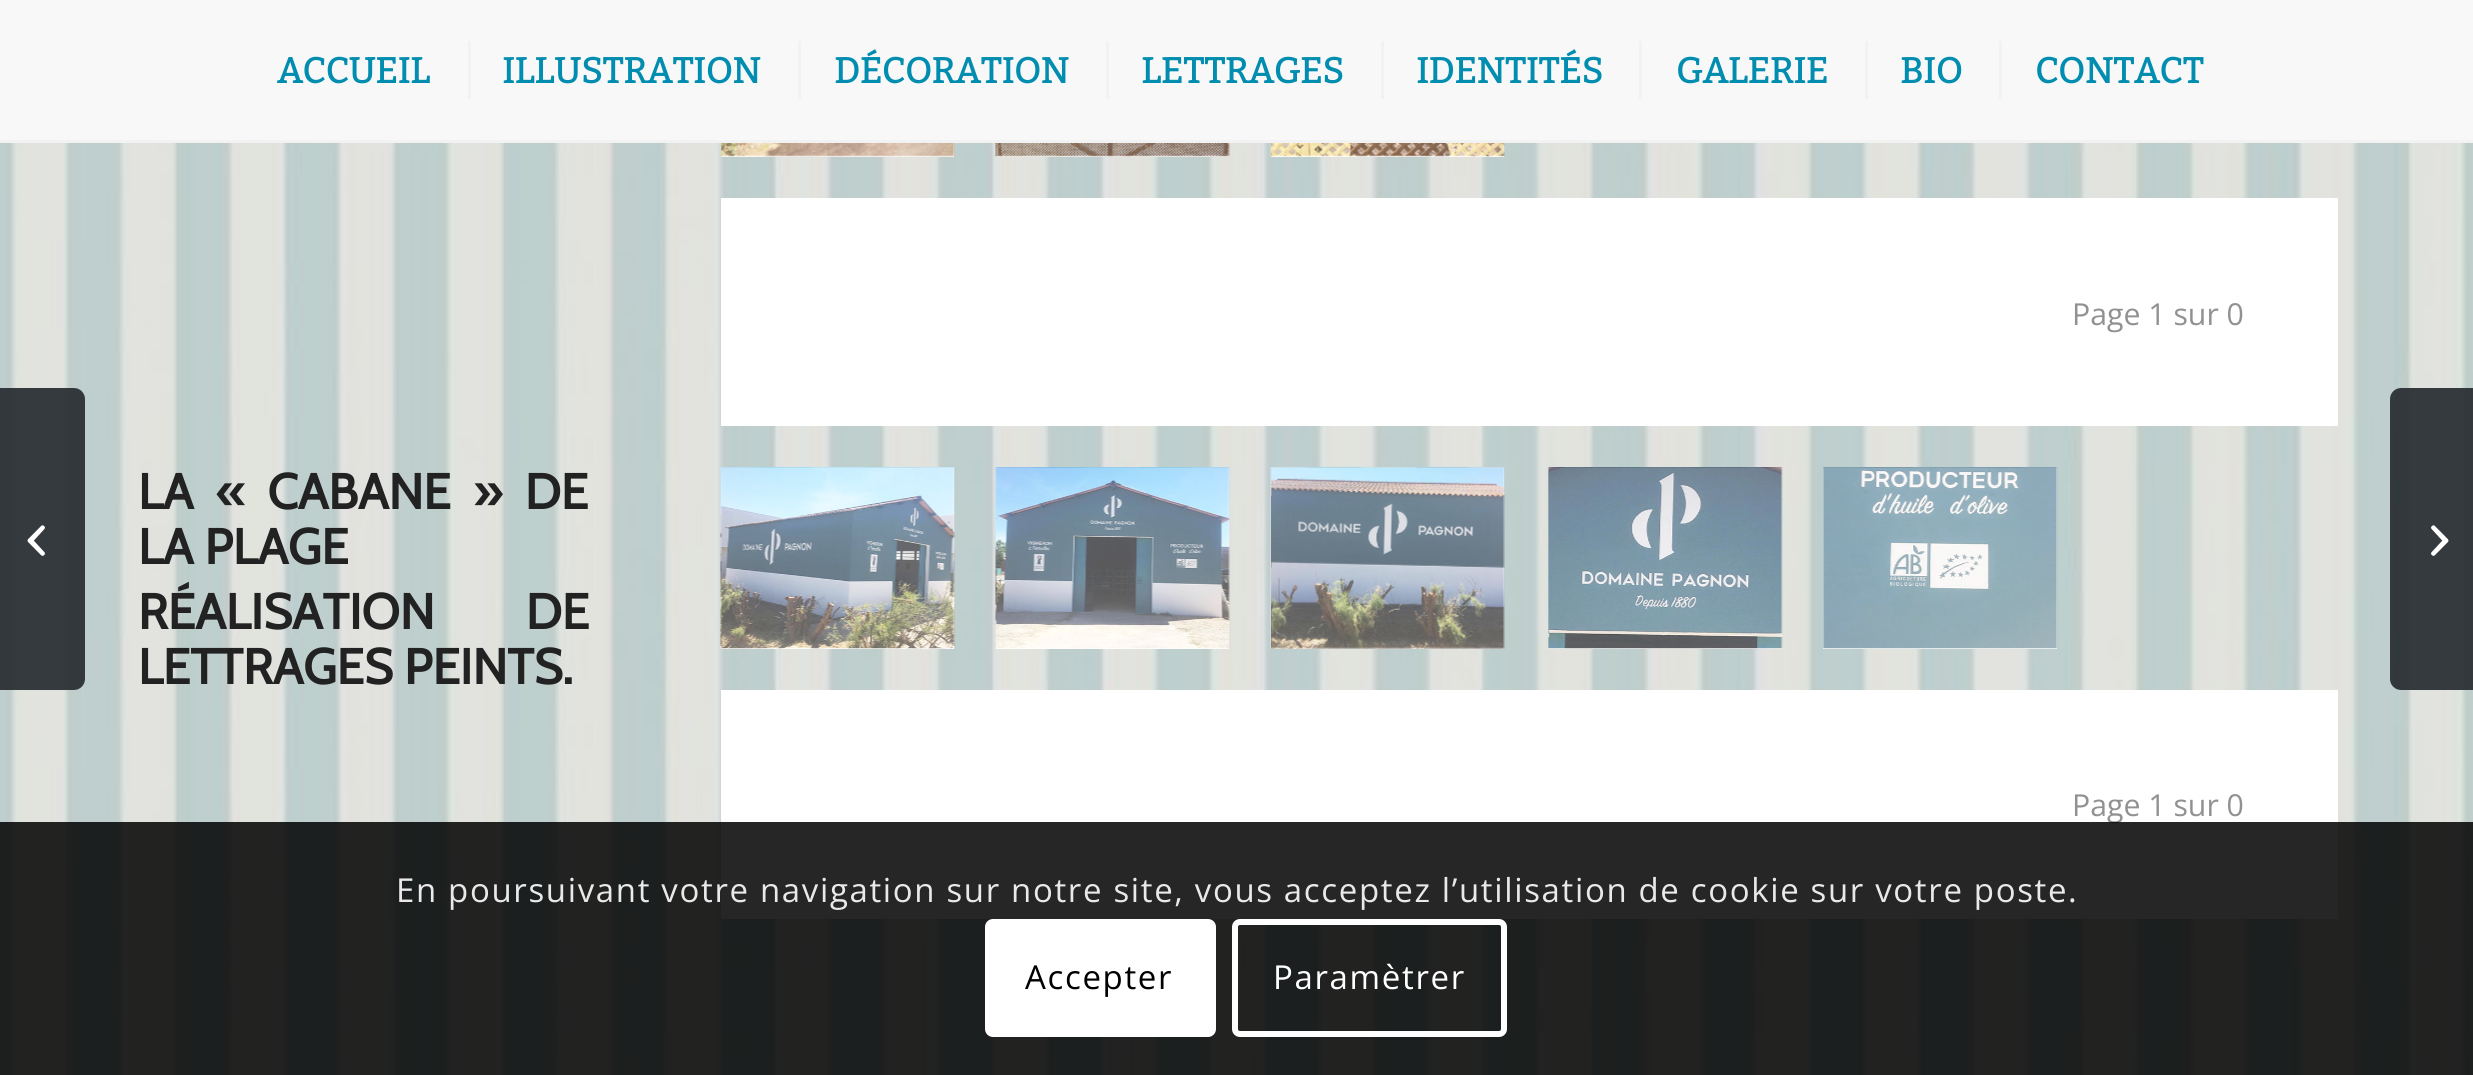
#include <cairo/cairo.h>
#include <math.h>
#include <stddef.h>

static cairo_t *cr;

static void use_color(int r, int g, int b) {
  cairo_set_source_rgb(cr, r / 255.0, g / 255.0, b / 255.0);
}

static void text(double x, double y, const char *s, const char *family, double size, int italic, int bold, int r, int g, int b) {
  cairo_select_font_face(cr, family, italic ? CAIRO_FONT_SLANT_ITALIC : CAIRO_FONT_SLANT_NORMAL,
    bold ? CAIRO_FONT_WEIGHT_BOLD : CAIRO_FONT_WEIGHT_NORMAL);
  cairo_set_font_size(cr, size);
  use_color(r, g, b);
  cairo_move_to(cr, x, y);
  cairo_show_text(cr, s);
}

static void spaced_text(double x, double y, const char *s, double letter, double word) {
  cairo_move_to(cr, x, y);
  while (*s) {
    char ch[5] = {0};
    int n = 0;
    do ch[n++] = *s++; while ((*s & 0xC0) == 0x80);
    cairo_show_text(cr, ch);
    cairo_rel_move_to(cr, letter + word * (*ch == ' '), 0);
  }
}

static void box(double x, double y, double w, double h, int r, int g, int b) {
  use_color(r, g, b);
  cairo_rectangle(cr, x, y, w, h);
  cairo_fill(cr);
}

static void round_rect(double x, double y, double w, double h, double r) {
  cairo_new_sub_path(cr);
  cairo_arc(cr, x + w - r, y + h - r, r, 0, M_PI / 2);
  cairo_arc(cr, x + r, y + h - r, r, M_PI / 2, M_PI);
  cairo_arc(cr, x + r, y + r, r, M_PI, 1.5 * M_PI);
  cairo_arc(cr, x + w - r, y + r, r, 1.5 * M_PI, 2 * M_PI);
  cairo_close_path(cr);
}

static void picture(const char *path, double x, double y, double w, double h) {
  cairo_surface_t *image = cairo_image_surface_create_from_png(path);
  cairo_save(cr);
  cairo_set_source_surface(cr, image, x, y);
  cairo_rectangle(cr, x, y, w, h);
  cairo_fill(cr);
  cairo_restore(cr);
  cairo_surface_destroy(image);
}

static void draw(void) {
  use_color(255, 255, 255);
  cairo_paint(cr);
  picture("img_02.png", 0, 143, 2473, 932);
  cairo_set_source_rgba(cr, 0.137, 0.157, 0.176, 0.9);
  cairo_new_path(cr);
  cairo_move_to(cr, 0, 388);
  cairo_line_to(cr, 74, 388);
  cairo_curve_to(cr, 80, 388, 85, 393, 85, 399);
  cairo_line_to(cr, 85, 679);
  cairo_curve_to(cr, 85, 685, 80, 690, 74, 690);
  cairo_line_to(cr, 0, 690);
  cairo_close_path(cr);
  cairo_fill(cr);
  picture("img_01.png", 27, 525, 18, 31);
  box(0, 0, 2473, 140, 248, 248, 248);
  box(0, 140, 2473, 3, 242, 242, 242);
  box(468, 41, 3, 58, 242, 242, 242);
  box(798, 41, 3, 58, 242, 242, 242);
  box(1106, 41, 3, 58, 242, 242, 242);
  box(1381, 41, 3, 58, 242, 242, 242);
  box(1639, 41, 3, 58, 242, 242, 242);
  box(1865, 41, 3, 58, 242, 242, 242);
  box(1999, 41, 3, 58, 242, 242, 242);
  picture("img_03.png", 720, 143, 235, 14);
  box(721, 143, 233, 14, 255, 255, 255);
  picture("img_04.png", 721, 143, 234, 14);
  box(996, 143, 233, 14, 255, 255, 255);
  picture("img_05.png", 995, 143, 235, 14);
  picture("img_06.png", 1270, 143, 235, 14);
  box(1271, 143, 233, 14, 255, 255, 255);
  picture("img_07.png", 1271, 143, 234, 14);
  box(721, 198, 1617, 228, 255, 255, 255);
  picture("img_08.png", 720, 467, 235, 182);
  box(721, 468, 233, 181, 255, 255, 255);
  picture("img_09.png", 720, 467, 235, 182);
  picture("img_10.png", 996, 467, 218, 1);
  box(996, 468, 233, 181, 255, 255, 255);
  picture("img_11.png", 995, 467, 235, 182);
  picture("img_12.png", 1270, 467, 235, 182);
  box(1271, 468, 233, 181, 255, 255, 255);
  picture("img_13.png", 1271, 466, 234, 183);
  picture("img_14.png", 1580, 467, 182, 1);
  box(1548, 468, 234, 181, 255, 255, 255);
  picture("img_15.png", 1548, 467, 235, 182);
  picture("img_16.png", 1823, 467, 234, 1);
  box(1823, 468, 234, 181, 255, 255, 255);
  picture("img_17.png", 1823, 467, 235, 182);
  box(721, 690, 1617, 229, 255, 255, 255);
  cairo_set_source_rgba(cr, 0.137, 0.157, 0.176, 0.9);
  cairo_new_path(cr);
  cairo_move_to(cr, 2401, 388);
  cairo_line_to(cr, 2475, 388);
  cairo_line_to(cr, 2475, 690);
  cairo_line_to(cr, 2401, 690);
  cairo_curve_to(cr, 2395, 690, 2390, 685, 2390, 679);
  cairo_line_to(cr, 2390, 399);
  cairo_curve_to(cr, 2390, 393, 2395, 388, 2401, 388);
  cairo_close_path(cr);
  cairo_fill(cr);
  picture("img_18.png", 2431, 525, 18, 31);
  text(277, 83, "ACCUEIL", "Bitter", 35.75, 0, 1, 0, 141, 176);
  text(502, 83, "ILLUSTRATION", "Bitter", 35.75, 0, 1, 0, 141, 176);
  text(834, 83, "DÉCORATION", "Bitter", 35.75, 0, 1, 0, 141, 176);
  text(1141, 83, "LETTRAGES", "Bitter", 35.75, 0, 1, 0, 141, 176);
  text(1416, 83, "IDENTITÉS", "Bitter", 35.75, 0, 1, 0, 141, 176);
  text(1676, 83, "GALERIE", "Bitter", 35.75, 0, 1, 0, 141, 176);
  text(1900, 83, "BIO", "Bitter", 35.75, 0, 1, 0, 141, 176);
  text(2035, 83, "CONTACT", "Bitter", 35.75, 0, 1, 0, 141, 176);
  text(2072, 325, "Page 1 sur 0", "Open Sans", 30.25, 0, 0, 145, 145, 145);
  cairo_select_font_face(cr, "Cabin", CAIRO_FONT_SLANT_NORMAL, CAIRO_FONT_WEIGHT_BOLD);
  cairo_set_font_size(cr, 49.5);
  use_color(34, 34, 34);
  spaced_text(138, 509, "LA « CABANE » DE", 0, 11.5);
  text(138, 564, "LA PLAGE", "Cabin", 49.5, 0, 1, 34, 34, 34);
  spaced_text(138, 629, "RÉALISATION DE", 0, 80);
  text(138, 684, "LETTRAGES PEINTS.", "Cabin", 49.5, 0, 1, 34, 34, 34);
  text(2072, 816, "Page 1 sur 0", "Open Sans", 30.25, 0, 0, 145, 145, 145);
  cairo_set_source_rgba(cr, 0, 0, 0, 0.85);
  cairo_rectangle(cr, 0, 822, 2473, 253);
  cairo_fill(cr);
  cairo_set_font_size(cr, 33);
  use_color(233, 233, 233);
  spaced_text(396, 902, "En poursuivant votre navigation sur notre site, vous acceptez l’utilisation de cookie sur votre poste.", 1.65, 0);
  use_color(255, 255, 255);
  round_rect(985, 919, 231, 118, 8);
  cairo_fill(cr);
  use_color(0, 0, 0);
  spaced_text(1025, 989, "Accepter", 1.65, 0);
  round_rect(1235, 922, 269, 112, 5);
  use_color(255, 255, 255);
  cairo_set_line_width(cr, 6);
  cairo_stroke(cr);
  spaced_text(1273, 989, "Paramètrer", 1.65, 0);
}

int main(void) {
  cairo_surface_t *surface = cairo_image_surface_create(CAIRO_FORMAT_RGB24, 2473, 1075);
  cr = cairo_create(surface);
  cairo_font_options_t *options = cairo_font_options_create();
  cairo_font_options_set_hint_metrics(options, CAIRO_HINT_METRICS_OFF);
  cairo_font_options_set_hint_style(options, CAIRO_HINT_STYLE_NONE);
  cairo_set_font_options(cr, options);
  cairo_set_miter_limit(cr, 4);
  draw();
  cairo_surface_write_to_png(surface, "out.png");
  cairo_font_options_destroy(options);
  cairo_destroy(cr);
  cairo_surface_destroy(surface);
  return 0;
}
